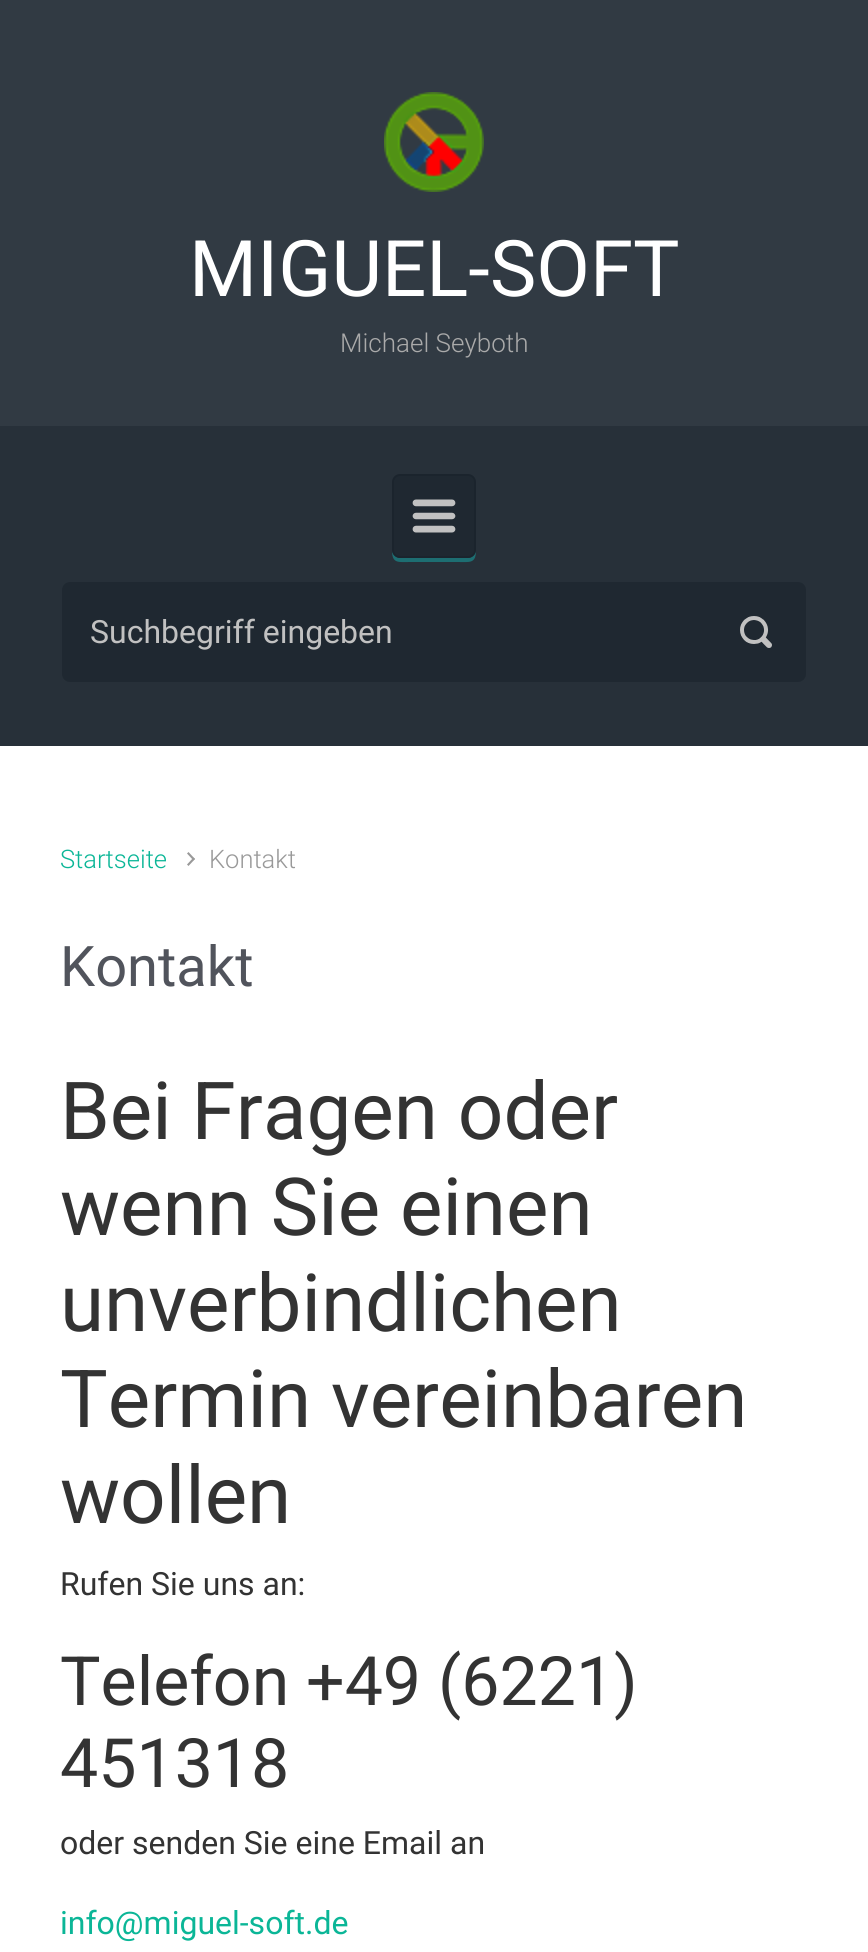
#include <cairo/cairo.h>
#include <math.h>
#include <stddef.h>

static cairo_t *cr;

static void use_color(int r, int g, int b) {
  cairo_set_source_rgb(cr, r / 255.0, g / 255.0, b / 255.0);
}

static void text(double x, double y, const char *s, const char *family, double size, int italic, int bold, int r, int g, int b) {
  cairo_select_font_face(cr, family, italic ? CAIRO_FONT_SLANT_ITALIC : CAIRO_FONT_SLANT_NORMAL,
    bold ? CAIRO_FONT_WEIGHT_BOLD : CAIRO_FONT_WEIGHT_NORMAL);
  cairo_set_font_size(cr, size);
  use_color(r, g, b);
  cairo_move_to(cr, x, y);
  cairo_show_text(cr, s);
}

static void box(double x, double y, double w, double h, int r, int g, int b) {
  use_color(r, g, b);
  cairo_rectangle(cr, x, y, w, h);
  cairo_fill(cr);
}

static void round_rect(double x, double y, double w, double h, double r) {
  cairo_new_sub_path(cr);
  cairo_arc(cr, x + w - r, y + h - r, r, 0, M_PI / 2);
  cairo_arc(cr, x + r, y + h - r, r, M_PI / 2, M_PI);
  cairo_arc(cr, x + r, y + r, r, M_PI, 1.5 * M_PI);
  cairo_arc(cr, x + w - r, y + r, r, 1.5 * M_PI, 2 * M_PI);
  cairo_close_path(cr);
}

static void picture(const char *path, double x, double y, double w, double h) {
  cairo_surface_t *image = cairo_image_surface_create_from_png(path);
  cairo_save(cr);
  cairo_set_source_surface(cr, image, x, y);
  cairo_rectangle(cr, x, y, w, h);
  cairo_fill(cr);
  cairo_restore(cr);
  cairo_surface_destroy(image);
}

static void draw(void) {
  use_color(49, 58, 67);
  cairo_paint(cr);
  picture("img_01.png", 384, 92, 100, 100);
  box(0, 426, 868, 320, 39, 48, 57);
  use_color(29, 110, 114);
  cairo_new_path(cr);
  cairo_move_to(cr, 392, 550);
  cairo_curve_to(cr, 392, 564, 398, 562, 411, 562);
  cairo_line_to(cr, 457, 562);
  cairo_curve_to(cr, 470, 562, 476, 564, 476, 550);
  cairo_curve_to(cr, 476, 554, 472, 558, 468, 558);
  cairo_line_to(cr, 400, 558);
  cairo_curve_to(cr, 396, 558, 392, 554, 392, 550);
  cairo_close_path(cr);
  cairo_fill(cr);
  use_color(31, 40, 49);
  round_rect(393, 475, 82, 82, 7);
  cairo_fill_preserve(cr);
  use_color(27, 36, 45);
  cairo_stroke(cr);
  picture("img_02.png", 412, 499, 44, 34);
  use_color(31, 40, 49);
  round_rect(62, 582, 744, 100, 8);
  cairo_fill(cr);
  picture("img_03.png", 740, 616, 32, 32);
  box(0, 746, 868, 1206, 255, 255, 255);
  use_color(153, 153, 153);
  cairo_new_path(cr);
  cairo_move_to(cr, 187, 853.5);
  cairo_line_to(cr, 188.5, 852);
  cairo_line_to(cr, 195, 859);
  cairo_line_to(cr, 193.5, 860.5);
  cairo_close_path(cr);
  cairo_fill(cr);
  cairo_new_path(cr);
  cairo_move_to(cr, 187, 864.5);
  cairo_line_to(cr, 193.5, 857.5);
  cairo_line_to(cr, 195, 859);
  cairo_line_to(cr, 188.5, 866);
  cairo_close_path(cr);
  cairo_fill(cr);
  text(189, 296, "MIGUEL-SOFT", "Roboto", 78, 0, 0, 255, 255, 255);
  text(340, 352, "Michael Seyboth", "Roboto Light", 26, 0, 0, 170, 170, 170);
  text(90, 643, "Suchbegriff eingeben", "Roboto", 32, 0, 0, 193, 193, 193);
  text(60, 868, "Startseite", "Roboto Light", 25.5, 0, 0, 11, 182, 151);
  text(209, 868, "Kontakt", "Roboto Light", 25.5, 0, 0, 153, 153, 153);
  text(60, 986, "Kontakt", "Roboto", 56, 0, 0, 81, 84, 92);
  text(60, 1139, "Bei Fragen oder", "Roboto", 80, 0, 0, 51, 51, 51);
  text(60, 1235, "wenn Sie einen", "Roboto", 80, 0, 0, 51, 51, 51);
  text(60, 1331, "unverbindlichen", "Roboto", 80, 0, 0, 51, 51, 51);
  text(60, 1427, "Termin vereinbaren", "Roboto", 80, 0, 0, 51, 51, 51);
  text(60, 1523, "wollen", "Roboto", 80, 0, 0, 51, 51, 51);
  text(60, 1595, "Rufen Sie uns an:", "Roboto", 32, 0, 0, 51, 51, 51);
  text(60, 1705, "Telefon +49 (6221)", "Roboto", 68, 0, 0, 51, 51, 51);
  text(60, 1787, "451318", "Roboto", 68, 0, 0, 51, 51, 51);
  text(60, 1854, "oder senden Sie eine Email an", "Roboto", 32, 0, 0, 51, 51, 51);
  text(60, 1934, "info@miguel-soft.de", "Roboto", 32, 0, 0, 11, 182, 151);
}

int main(void) {
  cairo_surface_t *surface = cairo_image_surface_create(CAIRO_FORMAT_RGB24, 868, 1952);
  cr = cairo_create(surface);
  cairo_font_options_t *options = cairo_font_options_create();
  cairo_font_options_set_hint_metrics(options, CAIRO_HINT_METRICS_OFF);
  cairo_font_options_set_hint_style(options, CAIRO_HINT_STYLE_NONE);
  cairo_set_font_options(cr, options);
  cairo_set_miter_limit(cr, 4);
  draw();
  cairo_surface_write_to_png(surface, "out.png");
  cairo_font_options_destroy(options);
  cairo_destroy(cr);
  cairo_surface_destroy(surface);
  return 0;
}
